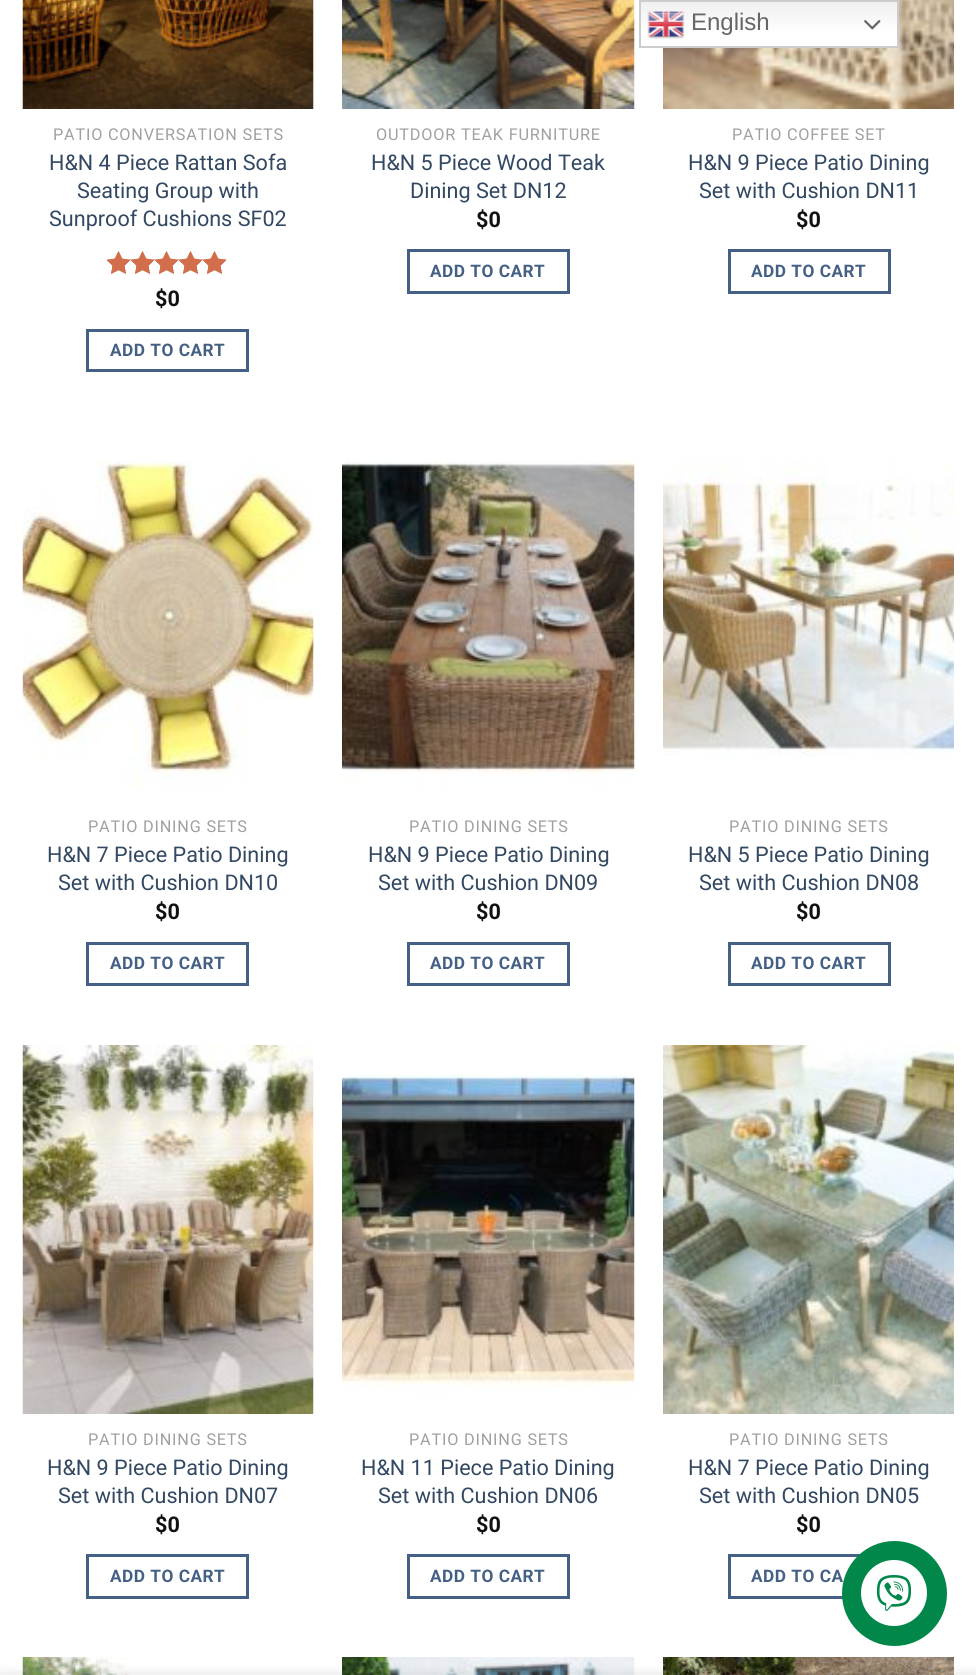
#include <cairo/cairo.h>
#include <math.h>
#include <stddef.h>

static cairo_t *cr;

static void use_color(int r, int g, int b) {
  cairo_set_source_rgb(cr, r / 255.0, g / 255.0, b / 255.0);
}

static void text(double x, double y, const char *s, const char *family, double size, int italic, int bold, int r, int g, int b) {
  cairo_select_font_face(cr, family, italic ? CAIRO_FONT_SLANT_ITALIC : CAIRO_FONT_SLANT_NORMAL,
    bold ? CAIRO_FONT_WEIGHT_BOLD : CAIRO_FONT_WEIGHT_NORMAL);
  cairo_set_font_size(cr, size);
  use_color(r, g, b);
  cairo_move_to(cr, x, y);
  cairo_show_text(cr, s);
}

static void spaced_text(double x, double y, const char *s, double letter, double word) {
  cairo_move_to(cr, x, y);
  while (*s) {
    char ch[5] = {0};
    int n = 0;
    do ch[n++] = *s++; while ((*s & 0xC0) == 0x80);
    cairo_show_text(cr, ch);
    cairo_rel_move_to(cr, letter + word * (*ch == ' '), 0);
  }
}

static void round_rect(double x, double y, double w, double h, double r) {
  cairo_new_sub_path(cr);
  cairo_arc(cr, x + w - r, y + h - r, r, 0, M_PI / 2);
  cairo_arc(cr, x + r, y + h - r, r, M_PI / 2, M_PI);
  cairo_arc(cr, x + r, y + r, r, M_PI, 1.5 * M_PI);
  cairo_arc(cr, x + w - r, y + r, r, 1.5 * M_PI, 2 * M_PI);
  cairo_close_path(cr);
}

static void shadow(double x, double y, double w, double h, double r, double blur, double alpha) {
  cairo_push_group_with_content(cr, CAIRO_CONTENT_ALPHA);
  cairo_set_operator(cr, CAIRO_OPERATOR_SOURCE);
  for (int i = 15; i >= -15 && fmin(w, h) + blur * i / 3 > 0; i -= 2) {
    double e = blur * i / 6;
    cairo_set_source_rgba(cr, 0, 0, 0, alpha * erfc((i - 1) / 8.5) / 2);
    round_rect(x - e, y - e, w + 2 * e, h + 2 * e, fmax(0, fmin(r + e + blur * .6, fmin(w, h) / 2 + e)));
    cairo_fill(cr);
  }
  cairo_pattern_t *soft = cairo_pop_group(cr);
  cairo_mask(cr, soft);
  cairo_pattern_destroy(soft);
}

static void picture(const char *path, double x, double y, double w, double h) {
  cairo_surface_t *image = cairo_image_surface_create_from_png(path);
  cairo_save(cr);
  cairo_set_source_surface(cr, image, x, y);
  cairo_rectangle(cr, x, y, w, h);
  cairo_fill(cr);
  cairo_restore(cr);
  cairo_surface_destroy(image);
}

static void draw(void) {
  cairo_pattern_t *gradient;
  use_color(255, 255, 255);
  cairo_paint(cr);
  picture("img_07.png", 663, 0, 291, 109);
  gradient = cairo_pattern_create_linear(769, 0, 769, 48);
  cairo_pattern_add_color_stop_rgba(gradient, 0, 0.937, 0.937, 0.937, 1);
  cairo_pattern_add_color_stop_rgba(gradient, 0.7, 1, 1, 1, 1);
  cairo_set_source(cr, gradient);
  cairo_pattern_destroy(gradient);
  cairo_rectangle(cr, 641, 2, 256, 44);
  cairo_fill(cr);
  cairo_rectangle(cr, 640, 1, 258, 46);
  use_color(204, 204, 204);
  cairo_stroke(cr);
  picture("img_01.png", 647, 11, 38, 28);
  picture("img_02.png", 864, 20, 17, 10);
  picture("img_03.png", 22, 0, 292, 109);
  picture("img_04.png", 107, 251, 120, 23);
  picture("img_05.png", 107, 251, 120, 23);
  cairo_rectangle(cr, 87.5, 330.5, 160, 40);
  use_color(68, 96, 132);
  cairo_set_line_width(cr, 3);
  cairo_stroke(cr);
  picture("img_06.png", 342, 0, 293, 109);
  cairo_rectangle(cr, 408.5, 250.5, 160, 42);
  cairo_stroke(cr);
  cairo_rectangle(cr, 729.5, 250.5, 160, 42);
  cairo_stroke(cr);
  picture("img_08.png", 22, 461, 292, 326);
  cairo_rectangle(cr, 87.5, 943.5, 160, 41);
  cairo_stroke(cr);
  picture("img_09.png", 342, 460, 293, 326);
  cairo_rectangle(cr, 408.5, 943.5, 160, 41);
  cairo_stroke(cr);
  picture("img_10.png", 663, 461, 291, 297);
  cairo_rectangle(cr, 729.5, 943.5, 160, 41);
  cairo_stroke(cr);
  picture("img_11.png", 22, 1045, 292, 369);
  cairo_rectangle(cr, 87.5, 1555.5, 160, 42);
  cairo_stroke(cr);
  picture("img_12.png", 342, 1074, 293, 321);
  cairo_rectangle(cr, 408.5, 1555.5, 160, 42);
  cairo_stroke(cr);
  picture("img_13.png", 663, 1045, 291, 369);
  cairo_rectangle(cr, 729.5, 1555.5, 160, 42);
  cairo_stroke(cr);
  picture("img_14.png", 22, 1657, 107, 18);
  picture("img_15.png", 342, 1657, 293, 18);
  picture("img_16.png", 663, 1657, 291, 18);
  use_color(0, 0, 0);
  shadow(0, 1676, 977, 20, 0, 7, 0.14);
  text(691, 30, "English", "Liberation Sans", 24, 0, 0, 102, 102, 102);
  cairo_select_font_face(cr, "Roboto", CAIRO_FONT_SLANT_NORMAL, CAIRO_FONT_WEIGHT_NORMAL);
  cairo_set_font_size(cr, 16.25);
  use_color(160, 160, 160);
  spaced_text(53, 140, "PATIO CONVERSATION SETS", 0.8, 0);
  text(49, 170, "H&N 4 Piece Rattan Sofa", "Roboto", 21.6, 0, 0, 51, 72, 98);
  text(77, 198, "Seating Group with", "Roboto", 21.6, 0, 0, 51, 72, 98);
  text(49, 226, "Sunproof Cushions SF02", "Roboto", 21.6, 0, 0, 51, 72, 98);
  text(155, 306, "$0", "Roboto", 21.6, 0, 1, 17, 17, 17);
  cairo_set_font_size(cr, 17.25);
  use_color(68, 96, 132);
  spaced_text(110, 356, "ADD TO CART", 0.5, 0);
  cairo_select_font_face(cr, "Roboto", CAIRO_FONT_SLANT_NORMAL, CAIRO_FONT_WEIGHT_NORMAL);
  cairo_set_font_size(cr, 16.25);
  use_color(160, 160, 160);
  spaced_text(376, 140, "OUTDOOR TEAK FURNITURE", 0.8, 0);
  text(371, 170, "H&N 5 Piece Wood Teak", "Roboto", 21.6, 0, 0, 51, 72, 98);
  text(410, 198, "Dining Set DN12", "Roboto", 21.6, 0, 0, 51, 72, 98);
  text(476, 227, "$0", "Roboto", 21.6, 0, 1, 17, 17, 17);
  cairo_set_font_size(cr, 17.25);
  use_color(68, 96, 132);
  spaced_text(430, 277, "ADD TO CART", 0.5, 0);
  cairo_select_font_face(cr, "Roboto", CAIRO_FONT_SLANT_NORMAL, CAIRO_FONT_WEIGHT_NORMAL);
  cairo_set_font_size(cr, 16.25);
  use_color(160, 160, 160);
  spaced_text(732, 140, "PATIO COFFEE SET", 0.8, 0);
  text(688, 170, "H&N 9 Piece Patio Dining", "Roboto", 21.6, 0, 0, 51, 72, 98);
  text(699, 198, "Set with Cushion DN11", "Roboto", 21.6, 0, 0, 51, 72, 98);
  text(796, 227, "$0", "Roboto", 21.6, 0, 1, 17, 17, 17);
  cairo_set_font_size(cr, 17.25);
  use_color(68, 96, 132);
  spaced_text(751, 277, "ADD TO CART", 0.5, 0);
  cairo_select_font_face(cr, "Roboto", CAIRO_FONT_SLANT_NORMAL, CAIRO_FONT_WEIGHT_NORMAL);
  cairo_set_font_size(cr, 16.25);
  use_color(160, 160, 160);
  spaced_text(88, 832, "PATIO DINING SETS", 0.8, 0);
  text(47, 862, "H&N 7 Piece Patio Dining", "Roboto", 21.6, 0, 0, 51, 72, 98);
  text(58, 890, "Set with Cushion DN10", "Roboto", 21.6, 0, 0, 51, 72, 98);
  text(155, 919, "$0", "Roboto", 21.6, 0, 1, 17, 17, 17);
  cairo_set_font_size(cr, 17.25);
  use_color(68, 96, 132);
  spaced_text(110, 969, "ADD TO CART", 0.5, 0);
  cairo_select_font_face(cr, "Roboto", CAIRO_FONT_SLANT_NORMAL, CAIRO_FONT_WEIGHT_NORMAL);
  cairo_set_font_size(cr, 16.25);
  use_color(160, 160, 160);
  spaced_text(409, 832, "PATIO DINING SETS", 0.8, 0);
  text(368, 862, "H&N 9 Piece Patio Dining", "Roboto", 21.6, 0, 0, 51, 72, 98);
  text(378, 890, "Set with Cushion DN09", "Roboto", 21.6, 0, 0, 51, 72, 98);
  text(476, 919, "$0", "Roboto", 21.6, 0, 1, 17, 17, 17);
  cairo_set_font_size(cr, 17.25);
  use_color(68, 96, 132);
  spaced_text(430, 969, "ADD TO CART", 0.5, 0);
  cairo_select_font_face(cr, "Roboto", CAIRO_FONT_SLANT_NORMAL, CAIRO_FONT_WEIGHT_NORMAL);
  cairo_set_font_size(cr, 16.25);
  use_color(160, 160, 160);
  spaced_text(729, 832, "PATIO DINING SETS", 0.8, 0);
  text(688, 862, "H&N 5 Piece Patio Dining", "Roboto", 21.6, 0, 0, 51, 72, 98);
  text(699, 890, "Set with Cushion DN08", "Roboto", 21.6, 0, 0, 51, 72, 98);
  text(796, 919, "$0", "Roboto", 21.6, 0, 1, 17, 17, 17);
  cairo_set_font_size(cr, 17.25);
  use_color(68, 96, 132);
  spaced_text(751, 969, "ADD TO CART", 0.5, 0);
  cairo_select_font_face(cr, "Roboto", CAIRO_FONT_SLANT_NORMAL, CAIRO_FONT_WEIGHT_NORMAL);
  cairo_set_font_size(cr, 16.25);
  use_color(160, 160, 160);
  spaced_text(88, 1445, "PATIO DINING SETS", 0.8, 0);
  text(47, 1475, "H&N 9 Piece Patio Dining", "Roboto", 21.6, 0, 0, 51, 72, 98);
  text(58, 1503, "Set with Cushion DN07", "Roboto", 21.6, 0, 0, 51, 72, 98);
  text(155, 1532, "$0", "Roboto", 21.6, 0, 1, 17, 17, 17);
  cairo_set_font_size(cr, 17.25);
  use_color(68, 96, 132);
  spaced_text(110, 1582, "ADD TO CART", 0.5, 0);
  cairo_select_font_face(cr, "Roboto", CAIRO_FONT_SLANT_NORMAL, CAIRO_FONT_WEIGHT_NORMAL);
  cairo_set_font_size(cr, 16.25);
  use_color(160, 160, 160);
  spaced_text(409, 1445, "PATIO DINING SETS", 0.8, 0);
  text(361, 1475, "H&N 11 Piece Patio Dining", "Roboto", 21.6, 0, 0, 51, 72, 98);
  text(378, 1503, "Set with Cushion DN06", "Roboto", 21.6, 0, 0, 51, 72, 98);
  text(476, 1532, "$0", "Roboto", 21.6, 0, 1, 17, 17, 17);
  cairo_set_font_size(cr, 17.25);
  use_color(68, 96, 132);
  spaced_text(430, 1582, "ADD TO CART", 0.5, 0);
  cairo_select_font_face(cr, "Roboto", CAIRO_FONT_SLANT_NORMAL, CAIRO_FONT_WEIGHT_NORMAL);
  cairo_set_font_size(cr, 16.25);
  use_color(160, 160, 160);
  spaced_text(729, 1445, "PATIO DINING SETS", 0.8, 0);
  text(688, 1475, "H&N 7 Piece Patio Dining", "Roboto", 21.6, 0, 0, 51, 72, 98);
  text(699, 1503, "Set with Cushion DN05", "Roboto", 21.6, 0, 0, 51, 72, 98);
  text(796, 1532, "$0", "Roboto", 21.6, 0, 1, 17, 17, 17);
  cairo_set_font_size(cr, 17.25);
  use_color(68, 96, 132);
  spaced_text(751, 1582, "ADD TO CA", 0.5, 0);
  use_color(0, 135, 73);
  cairo_new_path(cr);
  cairo_arc(cr, 894.5, 1593.5, 52.5, 0, 2 * M_PI);
  cairo_fill(cr);
  use_color(255, 255, 255);
  cairo_arc(cr, 894, 1593, 33, 0, 2 * M_PI);
  cairo_fill(cr);
  picture("img_17.png", 876, 1575, 36, 36);
}

int main(void) {
  cairo_surface_t *surface = cairo_image_surface_create(CAIRO_FORMAT_RGB24, 976, 1675);
  cr = cairo_create(surface);
  cairo_font_options_t *options = cairo_font_options_create();
  cairo_font_options_set_hint_metrics(options, CAIRO_HINT_METRICS_OFF);
  cairo_font_options_set_hint_style(options, CAIRO_HINT_STYLE_NONE);
  cairo_set_font_options(cr, options);
  cairo_set_miter_limit(cr, 4);
  draw();
  cairo_surface_write_to_png(surface, "out.png");
  cairo_font_options_destroy(options);
  cairo_destroy(cr);
  cairo_surface_destroy(surface);
  return 0;
}
